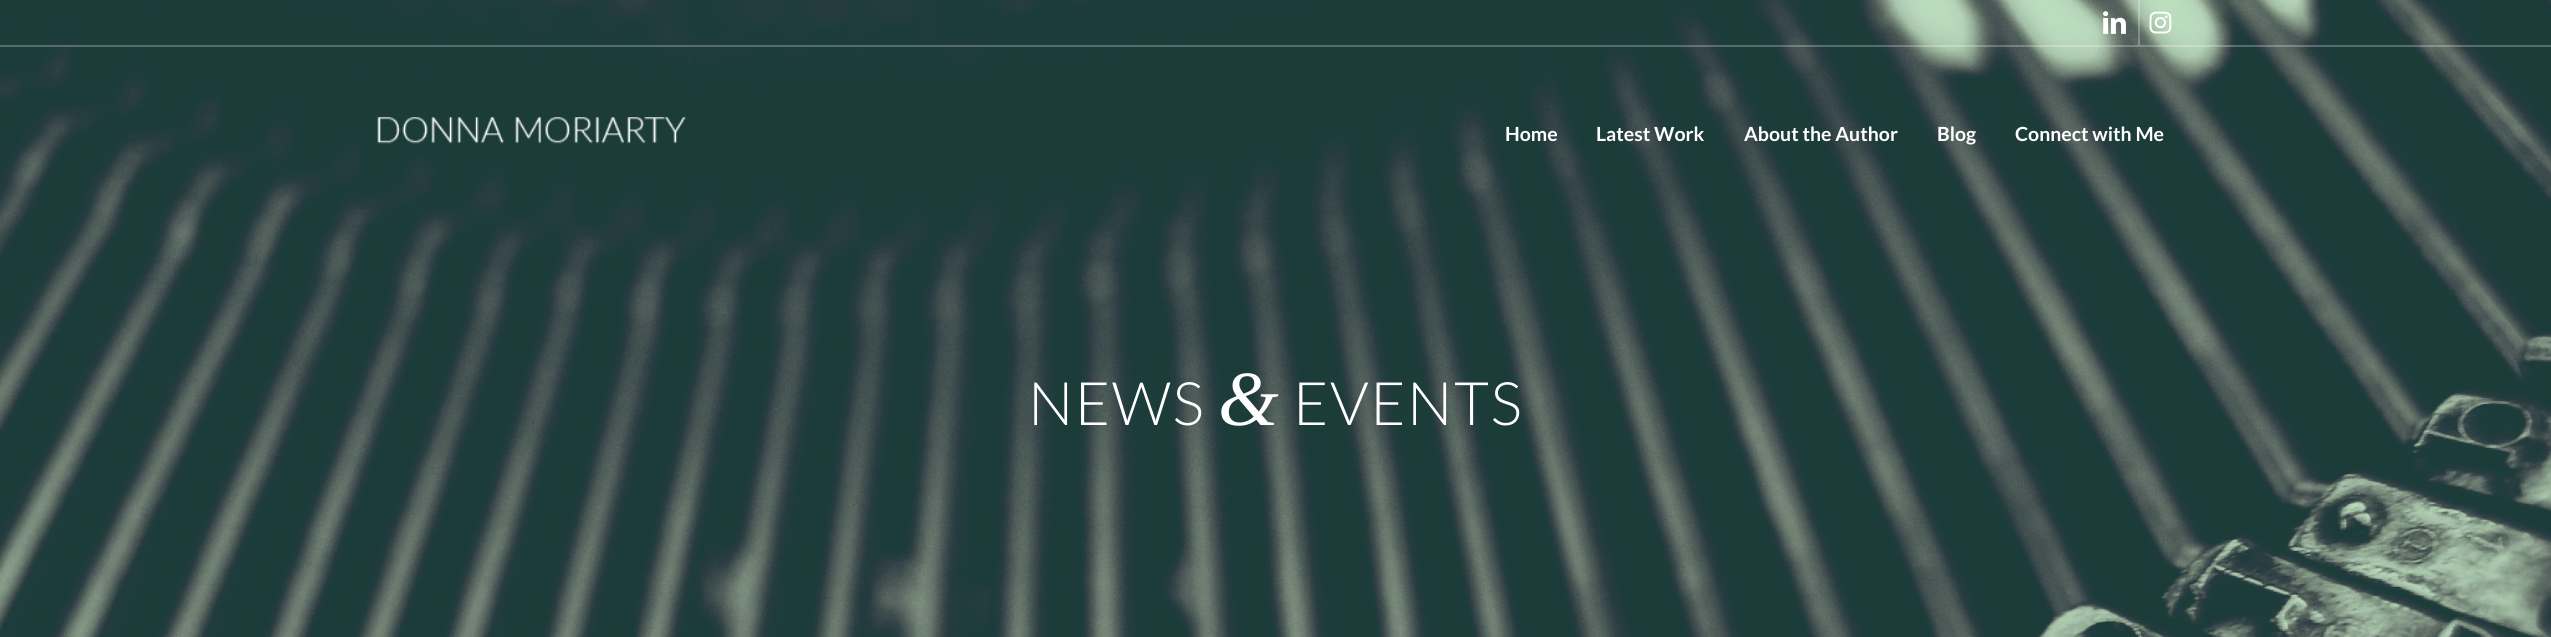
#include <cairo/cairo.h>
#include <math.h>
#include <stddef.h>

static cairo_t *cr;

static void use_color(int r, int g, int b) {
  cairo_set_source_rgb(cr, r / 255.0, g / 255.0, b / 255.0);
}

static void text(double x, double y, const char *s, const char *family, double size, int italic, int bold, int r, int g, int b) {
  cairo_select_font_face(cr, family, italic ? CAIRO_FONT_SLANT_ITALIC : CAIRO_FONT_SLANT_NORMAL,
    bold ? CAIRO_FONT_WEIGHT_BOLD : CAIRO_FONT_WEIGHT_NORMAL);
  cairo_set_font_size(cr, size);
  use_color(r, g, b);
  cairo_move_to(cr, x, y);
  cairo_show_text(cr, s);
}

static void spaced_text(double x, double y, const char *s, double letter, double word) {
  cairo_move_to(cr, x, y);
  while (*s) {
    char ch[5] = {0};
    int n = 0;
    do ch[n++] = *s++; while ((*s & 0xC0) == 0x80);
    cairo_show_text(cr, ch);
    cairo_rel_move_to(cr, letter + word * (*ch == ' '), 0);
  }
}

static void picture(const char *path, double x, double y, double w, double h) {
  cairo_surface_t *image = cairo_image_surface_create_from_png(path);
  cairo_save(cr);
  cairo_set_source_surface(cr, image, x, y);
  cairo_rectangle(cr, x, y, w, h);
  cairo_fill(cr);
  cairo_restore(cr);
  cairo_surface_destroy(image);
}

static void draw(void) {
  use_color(255, 255, 255);
  cairo_paint(cr);
  picture("img_04.png", 0, 0, 2551, 637);
  cairo_set_source_rgba(cr, 1, 1, 1, 0.25);
  cairo_rectangle(cr, 0, 45, 2551, 2);
  cairo_fill(cr);
  cairo_rectangle(cr, 2138, 0, 2, 45);
  cairo_fill(cr);
  picture("img_01.png", 2103, 11, 23, 23);
  picture("img_02.png", 2149, 11, 23, 23);
  picture("img_03.png", 377, 117, 310, 27);
  text(1505, 141, "Home", "Lato", 19.5, 0, 1, 255, 255, 255);
  text(1596, 141, "Latest Work", "Lato", 19.5, 0, 1, 255, 255, 255);
  text(1744, 141, "About the Author", "Lato", 19.5, 0, 1, 255, 255, 255);
  text(1937, 141, "Blog", "Lato", 19.5, 0, 1, 255, 255, 255);
  text(2015, 141, "Connect with Me", "Lato", 19.5, 0, 1, 255, 255, 255);
  cairo_select_font_face(cr, "Lato Light", CAIRO_FONT_SLANT_NORMAL, CAIRO_FONT_WEIGHT_NORMAL);
  cairo_set_font_size(cr, 60);
  spaced_text(1028, 425, "NEWS", 1.5, 0);
  cairo_select_font_face(cr, "Liberation Serif", CAIRO_FONT_SLANT_ITALIC, CAIRO_FONT_WEIGHT_NORMAL);
  cairo_set_font_size(cr, 78);
  spaced_text(1218, 425, "&", 1.5, 0);
  cairo_select_font_face(cr, "Lato Light", CAIRO_FONT_SLANT_NORMAL, CAIRO_FONT_WEIGHT_NORMAL);
  cairo_set_font_size(cr, 60);
  spaced_text(1293, 425, "EVENTS", 1.5, 0);
}

int main(void) {
  cairo_surface_t *surface = cairo_image_surface_create(CAIRO_FORMAT_RGB24, 2551, 637);
  cr = cairo_create(surface);
  cairo_font_options_t *options = cairo_font_options_create();
  cairo_font_options_set_hint_metrics(options, CAIRO_HINT_METRICS_OFF);
  cairo_font_options_set_hint_style(options, CAIRO_HINT_STYLE_NONE);
  cairo_set_font_options(cr, options);
  cairo_set_miter_limit(cr, 4);
  draw();
  cairo_surface_write_to_png(surface, "out.png");
  cairo_font_options_destroy(options);
  cairo_destroy(cr);
  cairo_surface_destroy(surface);
  return 0;
}
